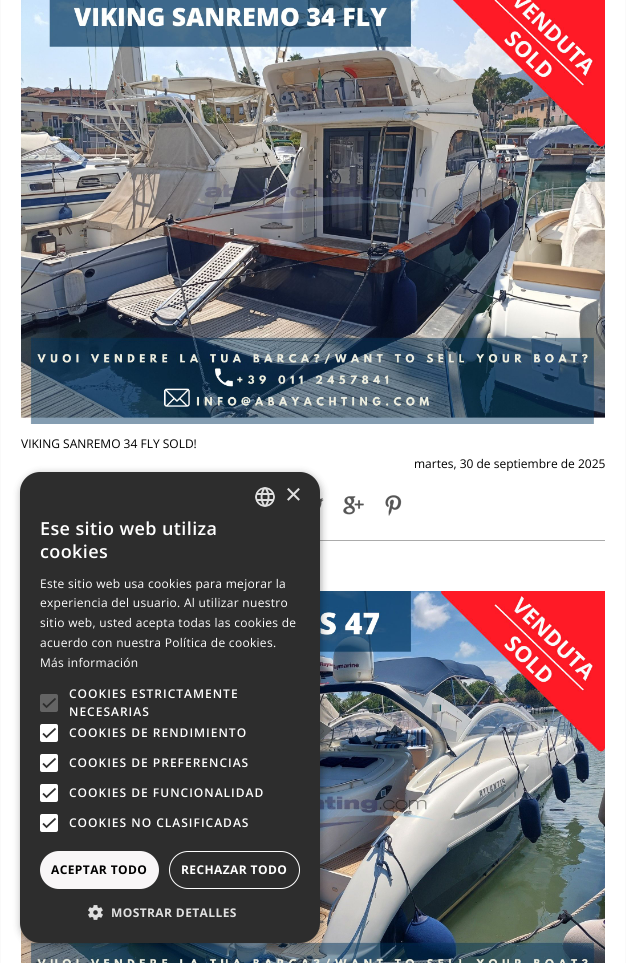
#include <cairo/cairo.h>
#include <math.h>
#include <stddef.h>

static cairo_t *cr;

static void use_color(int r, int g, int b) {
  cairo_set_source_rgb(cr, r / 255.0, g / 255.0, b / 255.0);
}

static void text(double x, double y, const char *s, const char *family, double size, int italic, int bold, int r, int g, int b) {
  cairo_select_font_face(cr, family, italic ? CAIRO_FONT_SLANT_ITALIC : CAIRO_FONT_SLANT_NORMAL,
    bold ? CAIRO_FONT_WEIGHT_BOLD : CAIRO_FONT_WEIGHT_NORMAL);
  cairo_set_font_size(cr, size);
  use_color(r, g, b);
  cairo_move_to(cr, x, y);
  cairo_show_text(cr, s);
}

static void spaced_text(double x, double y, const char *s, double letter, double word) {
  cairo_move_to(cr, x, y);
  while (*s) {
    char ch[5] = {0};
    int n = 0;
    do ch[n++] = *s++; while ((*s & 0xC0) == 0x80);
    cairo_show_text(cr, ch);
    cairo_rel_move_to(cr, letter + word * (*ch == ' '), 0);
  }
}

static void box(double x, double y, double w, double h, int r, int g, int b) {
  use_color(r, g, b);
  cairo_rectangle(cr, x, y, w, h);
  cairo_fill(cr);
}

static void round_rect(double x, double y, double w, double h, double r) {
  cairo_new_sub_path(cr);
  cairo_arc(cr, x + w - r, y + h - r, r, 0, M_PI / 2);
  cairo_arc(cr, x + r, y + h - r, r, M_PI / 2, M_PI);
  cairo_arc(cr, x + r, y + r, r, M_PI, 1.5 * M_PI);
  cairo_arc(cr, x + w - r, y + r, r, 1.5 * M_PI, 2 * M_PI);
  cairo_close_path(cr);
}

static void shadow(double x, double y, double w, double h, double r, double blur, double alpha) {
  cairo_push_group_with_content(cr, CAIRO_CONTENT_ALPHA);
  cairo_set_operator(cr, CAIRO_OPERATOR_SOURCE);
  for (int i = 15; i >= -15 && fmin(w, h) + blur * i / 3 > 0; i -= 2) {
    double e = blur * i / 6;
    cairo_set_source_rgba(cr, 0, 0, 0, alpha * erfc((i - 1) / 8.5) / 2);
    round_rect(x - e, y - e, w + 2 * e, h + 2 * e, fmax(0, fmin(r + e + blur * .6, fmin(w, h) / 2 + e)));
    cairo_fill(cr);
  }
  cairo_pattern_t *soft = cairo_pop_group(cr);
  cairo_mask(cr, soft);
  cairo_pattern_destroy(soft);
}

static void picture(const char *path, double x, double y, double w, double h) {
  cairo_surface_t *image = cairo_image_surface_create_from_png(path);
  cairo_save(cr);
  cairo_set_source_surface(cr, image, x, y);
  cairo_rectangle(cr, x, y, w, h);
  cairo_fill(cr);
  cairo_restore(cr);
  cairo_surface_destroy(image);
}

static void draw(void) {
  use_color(255, 255, 255);
  cairo_paint(cr);
  cairo_rectangle(cr, 0.5, -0.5, 625, 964);
  use_color(250, 250, 250);
  cairo_set_line_width(cr, 1);
  cairo_stroke(cr);
  box(320, 540, 285, 1, 171, 171, 171);
  picture("img_01.png", 21, 0, 584, 424);
  picture("img_02.png", 320, 498, 4, 10);
  picture("img_03.png", 343, 496, 21, 19);
  picture("img_04.png", 385, 495, 17, 21);
  picture("img_05.png", 21, 591, 584, 372);
  use_color(0, 0, 0);
  shadow(21, 474, 300, 471, 20, 4, 0.35);
  use_color(45, 45, 45);
  round_rect(20, 472, 300, 471, 20);
  cairo_fill(cr);
  picture("img_06.png", 255, 487, 20, 20);
  use_color(100, 100, 100);
  round_rect(40, 694, 18, 18, 2);
  cairo_fill(cr);
  cairo_new_path(cr);
  cairo_move_to(cr, 43, 703.5);
  cairo_line_to(cr, 46.5, 707);
  cairo_line_to(cr, 55.5, 698.5);
  use_color(45, 45, 45);
  cairo_set_line_width(cr, 1.8);
  cairo_stroke(cr);
  use_color(255, 255, 255);
  round_rect(41, 725, 16, 16, 1);
  cairo_fill_preserve(cr);
  cairo_set_line_width(cr, 2);
  cairo_stroke(cr);
  cairo_new_path(cr);
  cairo_move_to(cr, 43, 733.5);
  cairo_line_to(cr, 46.5, 737);
  cairo_line_to(cr, 55.5, 728.5);
  use_color(45, 45, 45);
  cairo_set_line_width(cr, 1.8);
  cairo_stroke(cr);
  use_color(255, 255, 255);
  round_rect(41, 755, 16, 16, 1);
  cairo_fill_preserve(cr);
  cairo_set_line_width(cr, 2);
  cairo_stroke(cr);
  cairo_new_path(cr);
  cairo_move_to(cr, 43, 763.5);
  cairo_line_to(cr, 46.5, 767);
  cairo_line_to(cr, 55.5, 758.5);
  use_color(45, 45, 45);
  cairo_set_line_width(cr, 1.8);
  cairo_stroke(cr);
  use_color(255, 255, 255);
  round_rect(41, 785, 16, 16, 1);
  cairo_fill_preserve(cr);
  cairo_set_line_width(cr, 2);
  cairo_stroke(cr);
  cairo_new_path(cr);
  cairo_move_to(cr, 43, 793.5);
  cairo_line_to(cr, 46.5, 797);
  cairo_line_to(cr, 55.5, 788.5);
  use_color(45, 45, 45);
  cairo_set_line_width(cr, 1.8);
  cairo_stroke(cr);
  use_color(255, 255, 255);
  round_rect(41, 815, 16, 16, 1);
  cairo_fill_preserve(cr);
  cairo_set_line_width(cr, 2);
  cairo_stroke(cr);
  cairo_new_path(cr);
  cairo_move_to(cr, 43, 823.5);
  cairo_line_to(cr, 46.5, 827);
  cairo_line_to(cr, 55.5, 818.5);
  use_color(45, 45, 45);
  cairo_set_line_width(cr, 1.8);
  cairo_stroke(cr);
  use_color(248, 246, 247);
  round_rect(40, 851, 119, 38, 19);
  cairo_fill(cr);
  round_rect(169.5, 851.5, 130, 37, 18.5);
  use_color(255, 255, 255);
  cairo_set_line_width(cr, 1);
  cairo_stroke(cr);
  picture("img_07.png", 88, 905, 15, 15);
  text(21, 448, "VIKING SANREMO 34 FLY SOLD!", "Open Sans", 12, 0, 0, 0, 0, 0);
  text(414, 468, "martes, 30 de septiembre de 2025", "Open Sans", 12, 0, 0, 0, 0, 0);
  text(285, 504, "×", "Liberation Sans", 29, 0, 0, 224, 224, 224);
  cairo_select_font_face(cr, "Open Sans SemiBold", CAIRO_FONT_SLANT_NORMAL, CAIRO_FONT_WEIGHT_NORMAL);
  cairo_set_font_size(cr, 18);
  use_color(255, 255, 255);
  spaced_text(40, 535, "Ese sitio web utiliza", 0.4, 0);
  spaced_text(40, 558, "cookies", 0.4, 0);
  cairo_select_font_face(cr, "Open Sans", CAIRO_FONT_SLANT_NORMAL, CAIRO_FONT_WEIGHT_NORMAL);
  cairo_set_font_size(cr, 12);
  spaced_text(40, 588, "Este sitio web usa cookies para mejorar la", 0.3, 0);
  spaced_text(40, 607, "experiencia del usuario. Al utilizar nuestro", 0.3, 0);
  spaced_text(40, 627, "sitio web, usted acepta todas las cookies de", 0.3, 0);
  spaced_text(40, 647, "acuerdo con nuestra Política de cookies.", 0.3, 0);
  spaced_text(40, 667, "Más información", 0.3, 0);
  cairo_select_font_face(cr, "Open Sans SemiBold", CAIRO_FONT_SLANT_NORMAL, CAIRO_FONT_WEIGHT_NORMAL);
  spaced_text(69, 698, "COOKIES ESTRICTAMENTE", 1, 0);
  spaced_text(69, 716, "NECESARIAS", 1, 0);
  spaced_text(69, 737, "COOKIES DE RENDIMIENTO", 1, 0);
  spaced_text(69, 767, "COOKIES DE PREFERENCIAS", 1, 0);
  spaced_text(69, 797, "COOKIES DE FUNCIONALIDAD", 1, 0);
  spaced_text(69, 827, "COOKIES NO CLASIFICADAS", 1, 0);
  cairo_select_font_face(cr, "Open Sans", CAIRO_FONT_SLANT_NORMAL, CAIRO_FONT_WEIGHT_BOLD);
  use_color(0, 0, 0);
  spaced_text(51, 874, "ACEPTAR TODO", 0.4, 0);
  use_color(255, 255, 255);
  spaced_text(181, 874, "RECHAZAR TODO", 0.4, 0);
  use_color(224, 224, 224);
  spaced_text(111, 917, "MOSTRAR DETALLES", 0.4, 0);
}

int main(void) {
  cairo_surface_t *surface = cairo_image_surface_create(CAIRO_FORMAT_RGB24, 626, 963);
  cr = cairo_create(surface);
  cairo_font_options_t *options = cairo_font_options_create();
  cairo_font_options_set_hint_metrics(options, CAIRO_HINT_METRICS_OFF);
  cairo_font_options_set_hint_style(options, CAIRO_HINT_STYLE_NONE);
  cairo_set_font_options(cr, options);
  cairo_set_miter_limit(cr, 4);
  draw();
  cairo_surface_write_to_png(surface, "out.png");
  cairo_font_options_destroy(options);
  cairo_destroy(cr);
  cairo_surface_destroy(surface);
  return 0;
}
